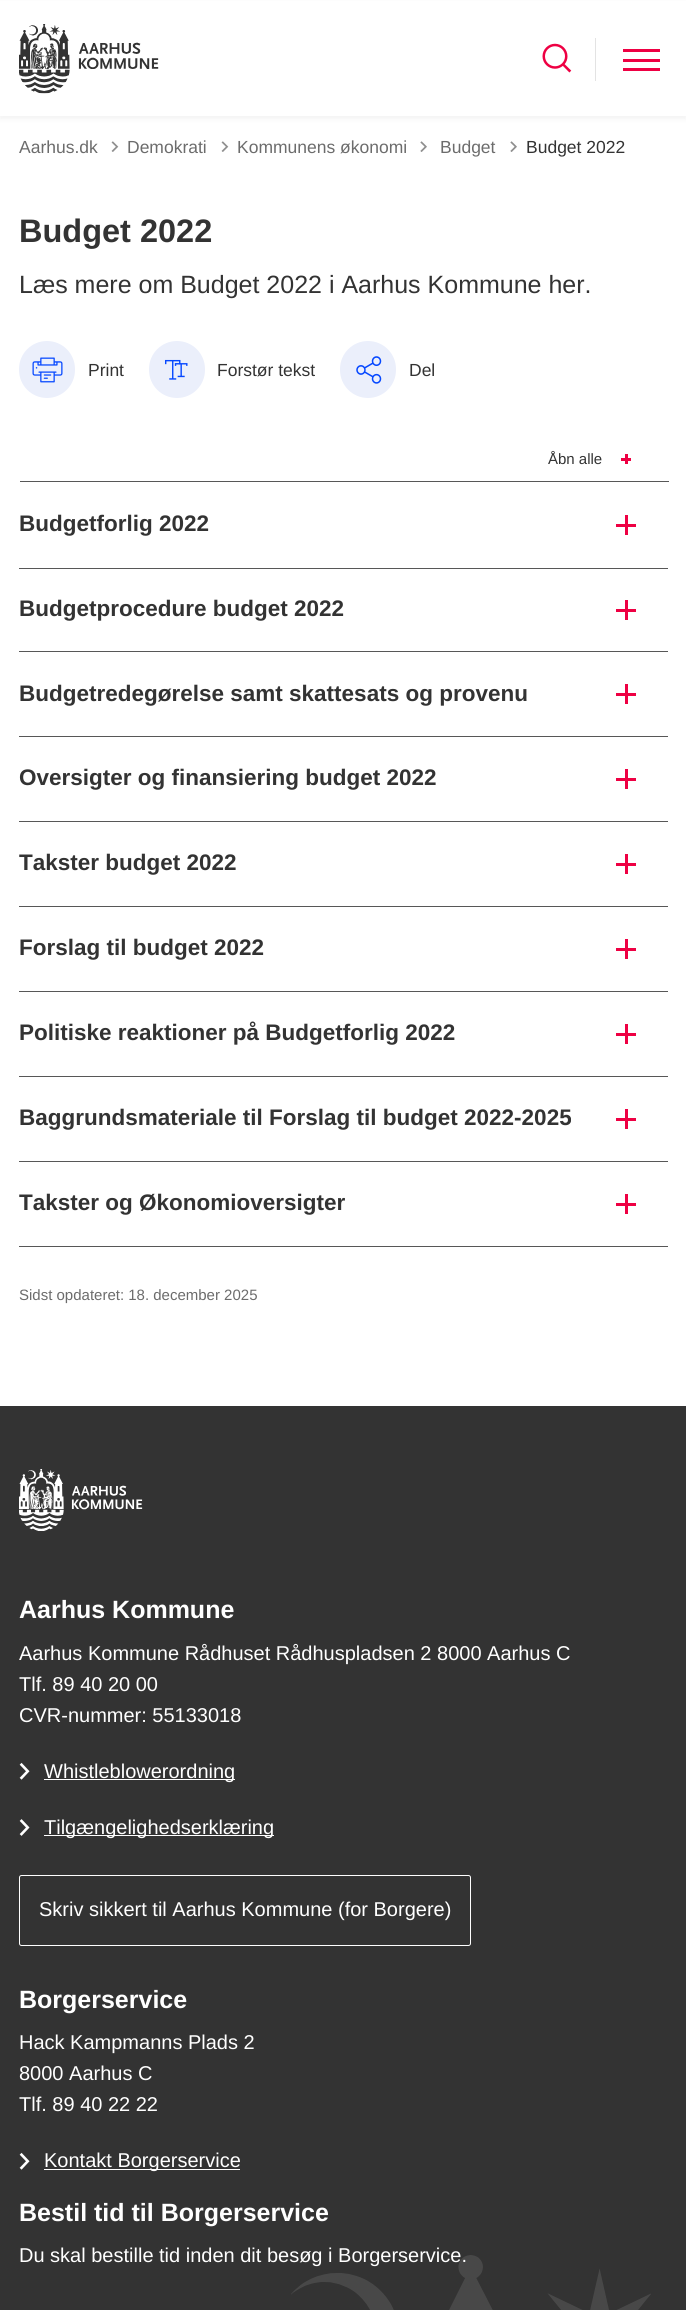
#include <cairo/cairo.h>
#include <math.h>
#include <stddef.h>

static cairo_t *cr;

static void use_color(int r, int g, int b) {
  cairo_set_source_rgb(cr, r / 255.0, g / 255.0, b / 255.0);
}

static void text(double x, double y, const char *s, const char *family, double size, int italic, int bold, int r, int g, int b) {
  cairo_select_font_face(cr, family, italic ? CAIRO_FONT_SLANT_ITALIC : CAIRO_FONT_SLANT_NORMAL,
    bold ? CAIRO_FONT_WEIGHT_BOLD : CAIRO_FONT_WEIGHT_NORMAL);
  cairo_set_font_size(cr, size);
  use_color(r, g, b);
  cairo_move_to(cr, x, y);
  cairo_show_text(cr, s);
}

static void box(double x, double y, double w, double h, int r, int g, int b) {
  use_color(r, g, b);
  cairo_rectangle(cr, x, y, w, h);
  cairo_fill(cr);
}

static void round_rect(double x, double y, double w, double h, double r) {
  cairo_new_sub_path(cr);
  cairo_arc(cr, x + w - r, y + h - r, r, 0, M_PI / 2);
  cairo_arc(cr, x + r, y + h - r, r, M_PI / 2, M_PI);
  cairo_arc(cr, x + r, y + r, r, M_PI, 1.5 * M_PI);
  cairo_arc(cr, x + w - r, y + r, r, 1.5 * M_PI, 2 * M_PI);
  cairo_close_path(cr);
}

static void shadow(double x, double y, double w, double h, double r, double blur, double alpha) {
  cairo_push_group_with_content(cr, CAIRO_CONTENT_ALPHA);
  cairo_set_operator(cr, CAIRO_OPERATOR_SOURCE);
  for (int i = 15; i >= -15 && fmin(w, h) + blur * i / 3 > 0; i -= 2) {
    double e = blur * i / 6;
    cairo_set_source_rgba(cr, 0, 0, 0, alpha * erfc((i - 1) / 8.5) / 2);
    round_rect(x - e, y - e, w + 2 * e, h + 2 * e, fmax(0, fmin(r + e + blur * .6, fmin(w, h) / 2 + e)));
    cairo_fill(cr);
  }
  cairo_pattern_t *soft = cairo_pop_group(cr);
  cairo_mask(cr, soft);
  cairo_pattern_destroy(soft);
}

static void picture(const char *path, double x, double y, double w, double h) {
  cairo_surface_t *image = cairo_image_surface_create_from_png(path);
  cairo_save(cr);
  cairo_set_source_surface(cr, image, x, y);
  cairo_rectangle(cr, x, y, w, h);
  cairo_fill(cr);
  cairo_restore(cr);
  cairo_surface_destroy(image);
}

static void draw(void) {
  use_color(255, 255, 255);
  cairo_paint(cr);
  use_color(0, 0, 0);
  shadow(0, 3, 686, 116, 0, 2.5, 0.05);
  box(0, 1, 686, 115, 255, 255, 255);
  picture("img_01.png", 19, 24, 140, 70);
  picture("img_02.png", 542, 43, 30, 30);
  box(595, 38, 1, 43, 227, 227, 227);
  box(623, 49, 37, 3, 238, 0, 67);
  box(623, 59, 37, 3, 238, 0, 67);
  box(623, 68, 37, 3, 238, 0, 67);
  picture("img_03.png", 111, 141, 8, 11);
  picture("img_03.png", 221, 141, 8, 11);
  picture("img_04.png", 420, 141, 7, 11);
  picture("img_04.png", 510, 141, 7, 11);
  use_color(235, 239, 251);
  round_rect(19, 341, 56, 57, 28);
  cairo_fill(cr);
  picture("img_05.png", 32, 357, 31, 26);
  round_rect(149, 341, 56, 57, 28);
  cairo_fill(cr);
  picture("img_06.png", 165, 359, 23, 21);
  round_rect(340, 341, 56, 57, 28);
  cairo_fill(cr);
  picture("img_07.png", 356, 356, 26, 28);
  box(621, 458, 10, 3, 238, 0, 67);
  box(625, 454, 3, 10, 238, 0, 67);
  box(20, 481, 649, 1, 87, 87, 87);
  box(616, 524, 20, 3, 238, 0, 67);
  box(625, 515, 3, 20, 238, 0, 67);
  box(19, 568, 649, 1, 87, 87, 87);
  box(616, 609, 20, 3, 238, 0, 67);
  box(625, 600, 3, 20, 238, 0, 67);
  box(19, 651, 649, 1, 87, 87, 87);
  box(616, 693, 20, 3, 238, 0, 67);
  box(625, 684, 3, 20, 238, 0, 67);
  box(19, 736, 649, 1, 87, 87, 87);
  box(616, 778, 20, 3, 238, 0, 67);
  box(625, 769, 3, 20, 238, 0, 67);
  box(19, 821, 649, 1, 87, 87, 87);
  box(616, 863, 20, 3, 238, 0, 67);
  box(625, 854, 3, 20, 238, 0, 67);
  box(19, 906, 649, 1, 87, 87, 87);
  box(616, 948, 20, 3, 238, 0, 67);
  box(625, 939, 3, 20, 238, 0, 67);
  box(19, 991, 649, 1, 87, 87, 87);
  box(616, 1033, 20, 3, 238, 0, 67);
  box(625, 1024, 3, 20, 238, 0, 67);
  box(19, 1076, 649, 1, 87, 87, 87);
  box(616, 1118, 20, 3, 238, 0, 67);
  box(625, 1109, 3, 20, 238, 0, 67);
  box(19, 1161, 649, 1, 87, 87, 87);
  box(616, 1203, 20, 3, 238, 0, 67);
  box(625, 1194, 3, 20, 238, 0, 67);
  box(19, 1246, 649, 1, 87, 87, 87);
  box(0, 1406, 686, 904, 51, 51, 51);
  picture("img_08.png", 19, 1469, 124, 62);
  picture("img_09.png", 19, 1762, 11, 18);
  box(44, 1779, 191, 1, 255, 255, 255);
  picture("img_10.png", 19, 1819, 11, 17);
  box(44, 1835, 230, 1, 255, 255, 255);
  round_rect(19.5, 1875.5, 451, 70, 2);
  cairo_set_line_width(cr, 1);
  cairo_stroke(cr);
  picture("img_09.png", 19, 2152, 11, 18);
  box(44, 2169, 196, 1, 255, 255, 255);
  picture("img_11.png", 291, 2255, 360, 55);
  text(19, 153, "Aarhus.dk", "Liberation Sans", 17.5, 0, 0, 108, 108, 108);
  text(127, 153, "Demokrati", "Liberation Sans", 17.5, 0, 0, 108, 108, 108);
  text(237, 153, "Kommunens økonomi", "Liberation Sans", 17.5, 0, 0, 108, 108, 108);
  text(440, 153, "Budget", "Liberation Sans", 17.5, 0, 0, 108, 108, 108);
  text(526, 153, "Budget 2022", "Liberation Sans", 17.5, 0, 0, 51, 51, 51);
  text(19, 242, "Budget 2022", "Liberation Sans", 32.5, 0, 1, 51, 51, 51);
  text(19, 293, "Læs mere om Budget 2022 i Aarhus Kommune her.", "Liberation Sans", 25, 0, 0, 51, 51, 51);
  text(88, 376, "Print", "Liberation Sans", 17.5, 0, 0, 51, 51, 51);
  text(217, 376, "Forstør tekst", "Liberation Sans", 17.5, 0, 0, 51, 51, 51);
  text(409, 376, "Del", "Liberation Sans", 17.5, 0, 0, 51, 51, 51);
  text(548, 464, "Åbn alle", "Liberation Sans", 15, 0, 0, 51, 51, 51);
  text(19, 531, "Budgetforlig 2022", "Liberation Sans", 22.5, 0, 1, 51, 51, 51);
  text(19, 616, "Budgetprocedure budget 2022", "Liberation Sans", 22.5, 0, 1, 51, 51, 51);
  text(19, 701, "Budgetredegørelse samt skattesats og provenu", "Liberation Sans", 22.5, 0, 1, 51, 51, 51);
  text(19, 785, "Oversigter og finansiering budget 2022", "Liberation Sans", 22.5, 0, 1, 51, 51, 51);
  text(19, 870, "Takster budget 2022", "Liberation Sans", 22.5, 0, 1, 51, 51, 51);
  text(19, 955, "Forslag til budget 2022", "Liberation Sans", 22.5, 0, 1, 51, 51, 51);
  text(19, 1040, "Politiske reaktioner på Budgetforlig 2022", "Liberation Sans", 22.5, 0, 1, 51, 51, 51);
  text(19, 1125, "Baggrundsmateriale til Forslag til budget 2022-2025", "Liberation Sans", 22.5, 0, 1, 51, 51, 51);
  text(19, 1210, "Takster og Økonomioversigter", "Liberation Sans", 22.5, 0, 1, 51, 51, 51);
  text(19, 1300, "Sidst opdateret: 18. december 2025", "Liberation Sans", 15, 0, 0, 108, 108, 108);
  text(19, 1618, "Aarhus Kommune", "Liberation Sans", 25, 0, 1, 255, 255, 255);
  text(19, 1660, "Aarhus Kommune Rådhuset Rådhuspladsen 2 8000 Aarhus C", "Liberation Sans", 20, 0, 0, 255, 255, 255);
  text(19, 1691, "Tlf. 89 40 20 00", "Liberation Sans", 20, 0, 0, 255, 255, 255);
  text(19, 1722, "CVR-nummer: 55133018", "Liberation Sans", 20, 0, 0, 255, 255, 255);
  text(44, 1778, "Whistleblowerordning", "Liberation Sans", 20, 0, 0, 255, 255, 255);
  text(44, 1834, "Tilgængelighedserklæring", "Liberation Sans", 20, 0, 0, 255, 255, 255);
  text(39, 1916, "Skriv sikkert til Aarhus Kommune (for Borgere)", "Liberation Sans", 20, 0, 0, 255, 255, 255);
  text(19, 2008, "Borgerservice", "Liberation Sans", 25, 0, 1, 255, 255, 255);
  text(19, 2049, "Hack Kampmanns Plads 2", "Liberation Sans", 20, 0, 0, 255, 255, 255);
  text(19, 2080, "8000 Aarhus C", "Liberation Sans", 20, 0, 0, 255, 255, 255);
  text(19, 2111, "Tlf. 89 40 22 22", "Liberation Sans", 20, 0, 0, 255, 255, 255);
  text(44, 2167, "Kontakt Borgerservice", "Liberation Sans", 20, 0, 0, 255, 255, 255);
  text(19, 2221, "Bestil tid til Borgerservice", "Liberation Sans", 25, 0, 1, 255, 255, 255);
  text(19, 2262, "Du skal bestille tid inden dit besøg i Borgerservice.", "Liberation Sans", 20, 0, 0, 255, 255, 255);
}

int main(void) {
  cairo_surface_t *surface = cairo_image_surface_create(CAIRO_FORMAT_RGB24, 686, 2310);
  cr = cairo_create(surface);
  cairo_font_options_t *options = cairo_font_options_create();
  cairo_font_options_set_hint_metrics(options, CAIRO_HINT_METRICS_OFF);
  cairo_font_options_set_hint_style(options, CAIRO_HINT_STYLE_NONE);
  cairo_set_font_options(cr, options);
  cairo_set_miter_limit(cr, 4);
  draw();
  cairo_surface_write_to_png(surface, "out.png");
  cairo_font_options_destroy(options);
  cairo_destroy(cr);
  cairo_surface_destroy(surface);
  return 0;
}
